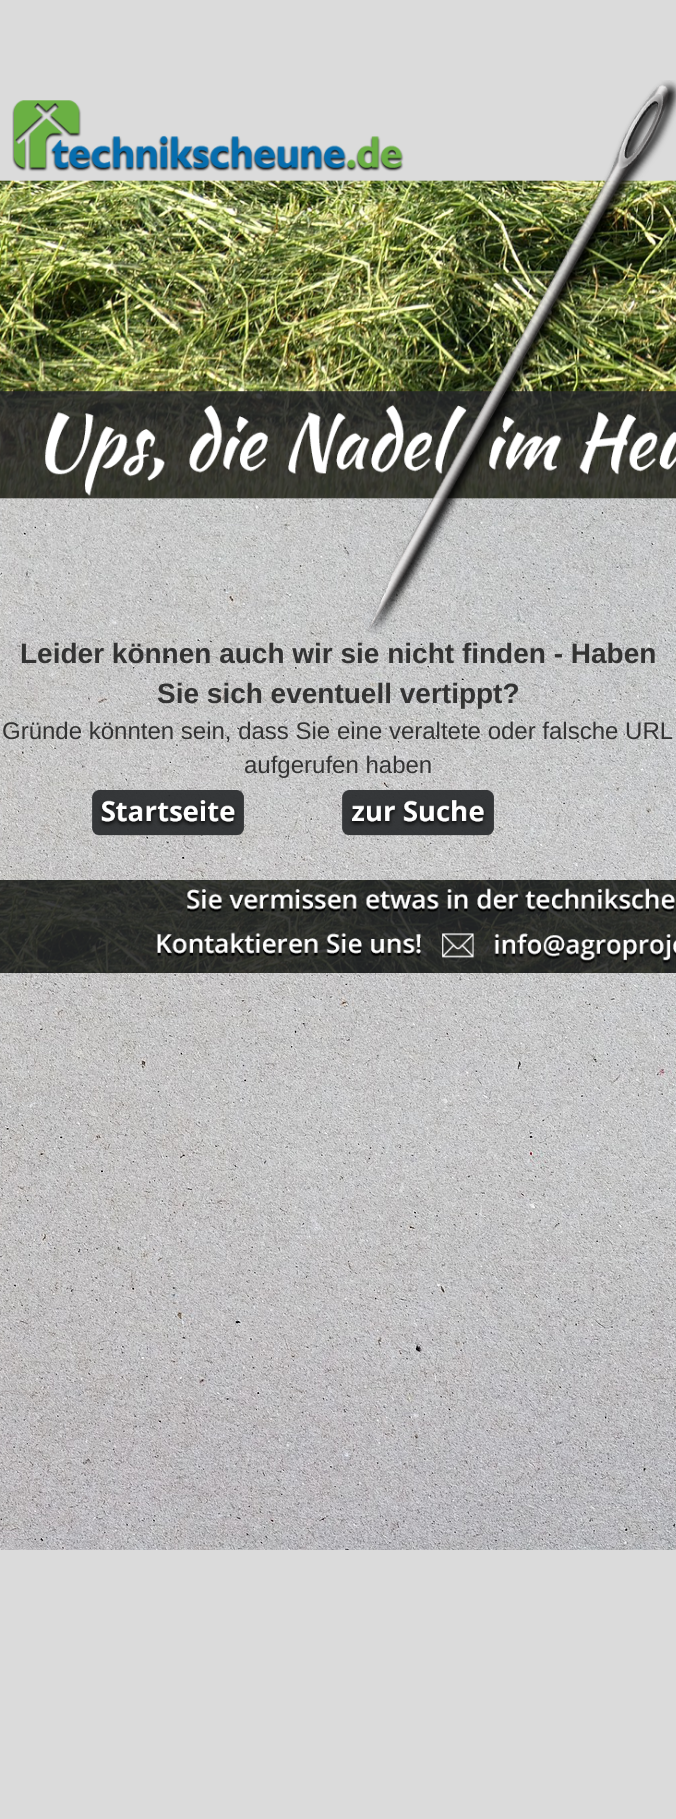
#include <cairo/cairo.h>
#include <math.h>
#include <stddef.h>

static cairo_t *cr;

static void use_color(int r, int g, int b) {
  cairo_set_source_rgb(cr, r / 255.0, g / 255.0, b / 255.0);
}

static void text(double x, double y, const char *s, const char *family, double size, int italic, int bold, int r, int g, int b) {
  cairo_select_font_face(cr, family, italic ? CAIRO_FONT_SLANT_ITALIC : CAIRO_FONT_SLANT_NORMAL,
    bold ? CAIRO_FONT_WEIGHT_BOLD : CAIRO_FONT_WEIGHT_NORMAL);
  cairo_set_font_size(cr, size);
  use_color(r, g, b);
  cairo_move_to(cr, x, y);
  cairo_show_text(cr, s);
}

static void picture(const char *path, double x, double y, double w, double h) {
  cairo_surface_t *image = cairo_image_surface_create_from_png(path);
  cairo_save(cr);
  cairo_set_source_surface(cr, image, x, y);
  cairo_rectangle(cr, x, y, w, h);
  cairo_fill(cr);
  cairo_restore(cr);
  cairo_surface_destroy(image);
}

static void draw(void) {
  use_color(219, 219, 219);
  cairo_paint(cr);
  picture("img_01.png", 0, 498, 676, 1052);
  picture("img_02.png", 0, 80, 676, 554);
  picture("img_03.png", 92, 790, 152, 46);
  picture("img_04.png", 342, 790, 152, 46);
  picture("img_05.png", 0, 880, 676, 93);
  text(20, 663, "Leider können auch wir sie nicht finden - Haben", "Liberation Sans", 28, 0, 1, 51, 51, 51);
  text(157, 703, "Sie sich eventuell vertippt?", "Liberation Sans", 28, 0, 1, 51, 51, 51);
  text(2, 739, "Gründe könnten sein, dass Sie eine veraltete oder falsche URL", "Liberation Sans", 24, 0, 0, 51, 51, 51);
  text(244, 773, "aufgerufen haben", "Liberation Sans", 24, 0, 0, 51, 51, 51);
}

int main(void) {
  cairo_surface_t *surface = cairo_image_surface_create(CAIRO_FORMAT_RGB24, 676, 1819);
  cr = cairo_create(surface);
  cairo_font_options_t *options = cairo_font_options_create();
  cairo_font_options_set_hint_metrics(options, CAIRO_HINT_METRICS_OFF);
  cairo_font_options_set_hint_style(options, CAIRO_HINT_STYLE_NONE);
  cairo_set_font_options(cr, options);
  cairo_set_miter_limit(cr, 4);
  draw();
  cairo_surface_write_to_png(surface, "out.png");
  cairo_font_options_destroy(options);
  cairo_destroy(cr);
  cairo_surface_destroy(surface);
  return 0;
}
